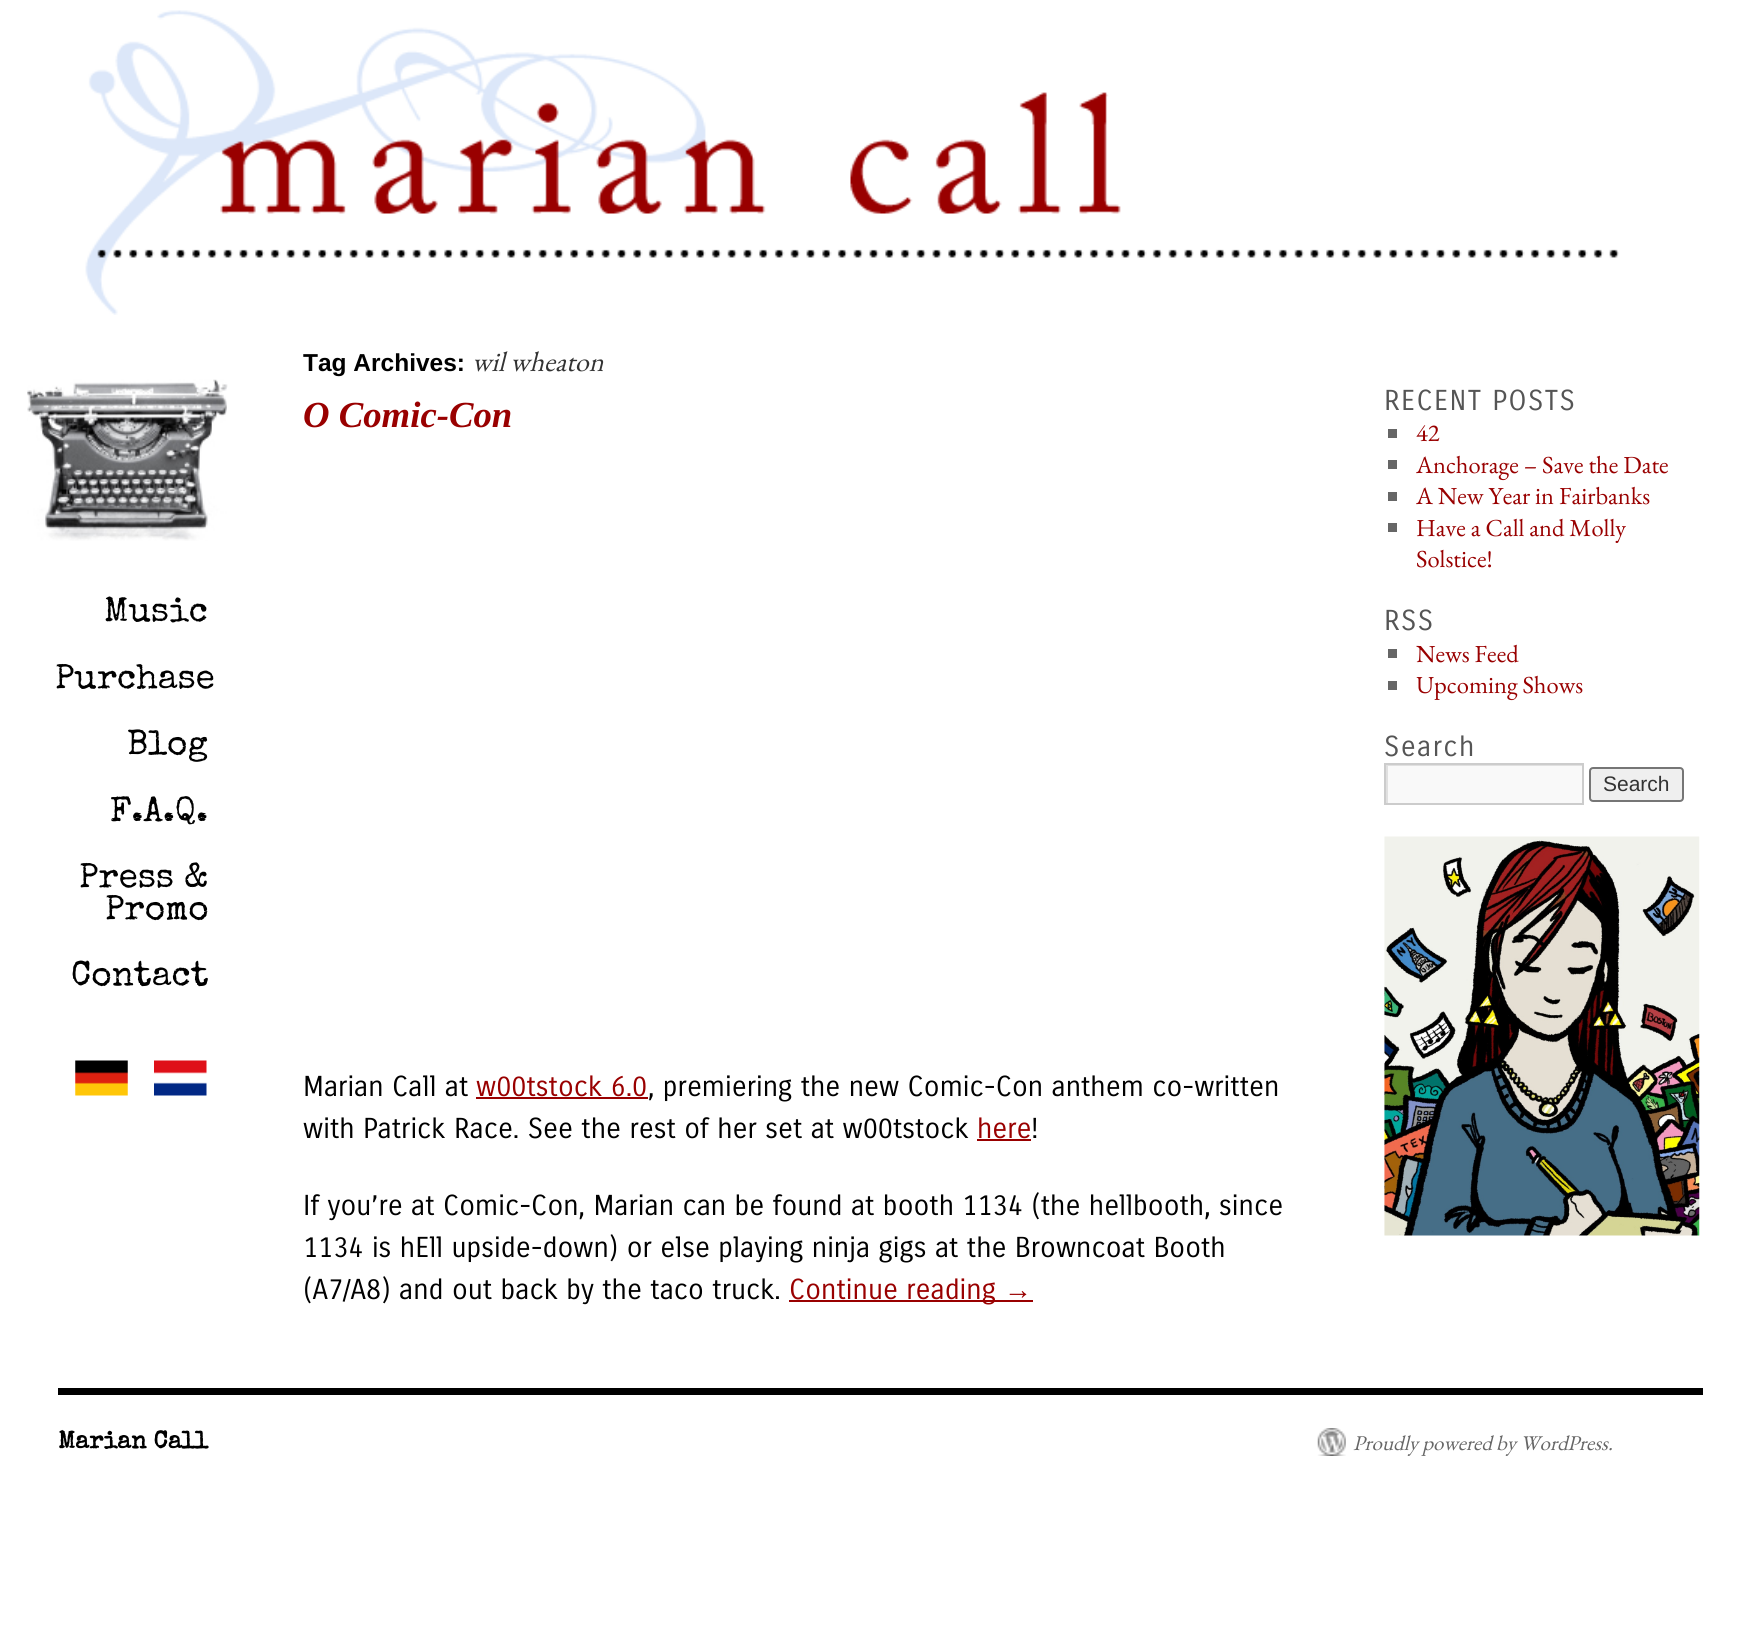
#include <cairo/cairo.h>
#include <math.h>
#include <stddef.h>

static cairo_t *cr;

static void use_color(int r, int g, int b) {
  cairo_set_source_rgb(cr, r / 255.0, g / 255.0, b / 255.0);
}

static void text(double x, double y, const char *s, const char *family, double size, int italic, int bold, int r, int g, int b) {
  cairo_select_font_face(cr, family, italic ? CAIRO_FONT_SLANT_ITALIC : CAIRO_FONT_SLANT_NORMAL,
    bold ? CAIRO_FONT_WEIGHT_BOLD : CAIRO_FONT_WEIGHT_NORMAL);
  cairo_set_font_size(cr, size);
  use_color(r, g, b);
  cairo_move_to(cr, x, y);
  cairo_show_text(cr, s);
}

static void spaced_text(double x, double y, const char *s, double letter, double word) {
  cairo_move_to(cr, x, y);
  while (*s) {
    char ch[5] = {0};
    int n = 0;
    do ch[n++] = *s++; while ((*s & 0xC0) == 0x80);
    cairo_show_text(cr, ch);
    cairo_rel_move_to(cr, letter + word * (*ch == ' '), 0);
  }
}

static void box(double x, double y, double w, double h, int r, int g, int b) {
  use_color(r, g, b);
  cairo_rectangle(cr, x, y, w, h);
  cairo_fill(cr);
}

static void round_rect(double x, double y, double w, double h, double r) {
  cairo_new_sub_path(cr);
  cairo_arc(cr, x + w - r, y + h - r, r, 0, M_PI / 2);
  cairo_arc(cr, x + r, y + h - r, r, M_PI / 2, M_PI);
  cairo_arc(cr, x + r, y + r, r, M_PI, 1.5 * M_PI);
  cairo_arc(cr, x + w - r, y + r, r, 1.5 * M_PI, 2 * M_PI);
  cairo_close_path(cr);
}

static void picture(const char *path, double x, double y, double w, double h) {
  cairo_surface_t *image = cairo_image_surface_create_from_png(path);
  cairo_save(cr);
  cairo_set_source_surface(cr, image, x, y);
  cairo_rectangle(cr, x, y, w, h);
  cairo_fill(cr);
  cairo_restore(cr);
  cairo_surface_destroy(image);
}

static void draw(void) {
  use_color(255, 255, 255);
  cairo_paint(cr);
  picture("img_01.png", 85, 10, 1534, 305);
  picture("img_02.png", 27, 379, 201, 162);
  picture("img_03.png", 75, 1060, 53, 36);
  picture("img_04.png", 154, 1060, 53, 36);
  box(476, 1097, 172, 2, 153, 0, 0);
  box(977, 1139, 54, 2, 153, 0, 0);
  box(789, 1300, 244, 2, 153, 0, 0);
  box(1388, 429, 9, 9, 102, 102, 102);
  box(1388, 460, 9, 9, 102, 102, 102);
  box(1388, 492, 9, 9, 102, 102, 102);
  box(1388, 523, 9, 9, 102, 102, 102);
  box(1388, 649, 9, 9, 102, 102, 102);
  box(1388, 681, 9, 9, 102, 102, 102);
  box(1388, 766, 194, 37, 249, 249, 249);
  cairo_save(cr);
  cairo_rectangle(cr, 1386, 765, 196, 38);
  cairo_clip(cr);
  use_color(224, 224, 224);
  cairo_set_fill_rule(cr, CAIRO_FILL_RULE_EVEN_ODD);
  cairo_new_path(cr);
  cairo_move_to(cr, 1213, 592);
  cairo_line_to(cr, 1755, 592);
  cairo_line_to(cr, 1755, 976);
  cairo_line_to(cr, 1213, 976);
  cairo_close_path(cr);
  cairo_move_to(cr, 1388, 766);
  cairo_line_to(cr, 1584, 766);
  cairo_line_to(cr, 1584, 805);
  cairo_line_to(cr, 1388, 805);
  cairo_close_path(cr);
  cairo_fill(cr);
  cairo_restore(cr);
  cairo_rectangle(cr, 1385, 764, 198, 40);
  use_color(204, 204, 204);
  cairo_stroke(cr);
  use_color(239, 239, 239);
  round_rect(1590, 768, 93, 33, 3);
  cairo_fill_preserve(cr);
  use_color(118, 118, 118);
  cairo_stroke(cr);
  picture("img_05.png", 1384, 836, 316, 400);
  box(58, 1388, 1645, 7, 0, 0, 0);
  picture("img_06.png", 1317, 1428, 29, 28);
  text(104, 621, "Music", "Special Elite", 35, 0, 0, 0, 0, 0);
  text(55, 688, "Purchase", "Special Elite", 35, 0, 0, 0, 0, 0);
  text(127, 754, "Blog", "Special Elite", 35, 0, 0, 0, 0, 0);
  text(110, 821, "F.A.Q.", "Special Elite", 35, 0, 0, 0, 0, 0);
  text(79, 887, "Press &", "Special Elite", 35, 0, 0, 0, 0, 0);
  text(105, 919, "Promo", "Special Elite", 35, 0, 0, 0, 0, 0);
  text(71, 985, "Contact", "Special Elite", 35, 0, 0, 0, 0, 0);
  text(303, 371, "Tag Archives:", "Liberation Sans", 24.5, 0, 1, 0, 0, 0);
  text(472, 371, "wil wheaton", "EB Garamond", 28, 1, 0, 51, 51, 51);
  text(303, 427, "O Comic-Con", "Liberation Serif", 36.75, 1, 1, 153, 0, 0);
  text(303, 1096, "Marian Call at", "Carrois Gothic", 28, 0, 0, 0, 0, 0);
  text(476, 1096, "w00tstock 6.0", "Carrois Gothic", 28, 0, 0, 153, 0, 0);
  text(648, 1096, ", premiering the new Comic-Con anthem co-written", "Carrois Gothic", 28, 0, 0, 0, 0, 0);
  text(303, 1138, "with Patrick Race. See the rest of her set at w00tstock", "Carrois Gothic", 28, 0, 0, 0, 0, 0);
  text(977, 1138, "here", "Carrois Gothic", 28, 0, 0, 153, 0, 0);
  text(1031, 1138, "!", "Carrois Gothic", 28, 0, 0, 0, 0, 0);
  text(303, 1215, "If you’re at Comic-Con, Marian can be found at booth 1134 (the hellbooth, since", "Carrois Gothic", 28, 0, 0, 0, 0, 0);
  text(303, 1257, "1134 is hEll upside-down) or else playing ninja gigs at the Browncoat Booth", "Carrois Gothic", 28, 0, 0, 0, 0, 0);
  text(303, 1299, "(A7/A8) and out back by the taco truck.", "Carrois Gothic", 28, 0, 0, 0, 0, 0);
  text(789, 1299, "Continue reading", "Carrois Gothic", 28, 0, 0, 153, 0, 0);
  text(1004, 1299, "→", "Liberation Sans", 28, 0, 0, 153, 0, 0);
  cairo_select_font_face(cr, "Carrois Gothic", CAIRO_FONT_SLANT_NORMAL, CAIRO_FONT_WEIGHT_NORMAL);
  use_color(85, 85, 85);
  spaced_text(1384, 410, "RECENT POSTS", 1.4, 0);
  text(1416, 441, "42", "EB Garamond", 24.5, 0, 0, 153, 0, 0);
  text(1416, 473, "Anchorage – Save the Date", "EB Garamond", 24.5, 0, 0, 153, 0, 0);
  text(1416, 504, "A New Year in Fairbanks", "EB Garamond", 24.5, 0, 0, 153, 0, 0);
  text(1416, 536, "Have a Call and Molly", "EB Garamond", 24.5, 0, 0, 153, 0, 0);
  text(1416, 567, "Solstice!", "EB Garamond", 24.5, 0, 0, 153, 0, 0);
  cairo_select_font_face(cr, "Carrois Gothic", CAIRO_FONT_SLANT_NORMAL, CAIRO_FONT_WEIGHT_NORMAL);
  cairo_set_font_size(cr, 28);
  use_color(85, 85, 85);
  spaced_text(1384, 630, "RSS", 1.4, 0);
  text(1416, 662, "News Feed", "EB Garamond", 24.5, 0, 0, 153, 0, 0);
  text(1416, 693, "Upcoming Shows", "EB Garamond", 24.5, 0, 0, 153, 0, 0);
  cairo_select_font_face(cr, "Carrois Gothic", CAIRO_FONT_SLANT_NORMAL, CAIRO_FONT_WEIGHT_NORMAL);
  cairo_set_font_size(cr, 28);
  use_color(85, 85, 85);
  spaced_text(1384, 756, "Search", 1.4, 0);
  text(1603, 791, "Search", "Liberation Sans", 21, 0, 0, 51, 51, 51);
  text(58, 1448, "Marian Call", "Special Elite", 24.5, 0, 1, 0, 0, 0);
  text(1353, 1450, "Proudly powered by WordPress.", "EB Garamond", 21, 1, 0, 102, 102, 102);
}

int main(void) {
  cairo_surface_t *surface = cairo_image_surface_create(CAIRO_FORMAT_RGB24, 1759, 1641);
  cr = cairo_create(surface);
  cairo_font_options_t *options = cairo_font_options_create();
  cairo_font_options_set_hint_metrics(options, CAIRO_HINT_METRICS_OFF);
  cairo_font_options_set_hint_style(options, CAIRO_HINT_STYLE_NONE);
  cairo_set_font_options(cr, options);
  cairo_set_miter_limit(cr, 4);
  draw();
  cairo_surface_write_to_png(surface, "out.png");
  cairo_font_options_destroy(options);
  cairo_destroy(cr);
  cairo_surface_destroy(surface);
  return 0;
}
